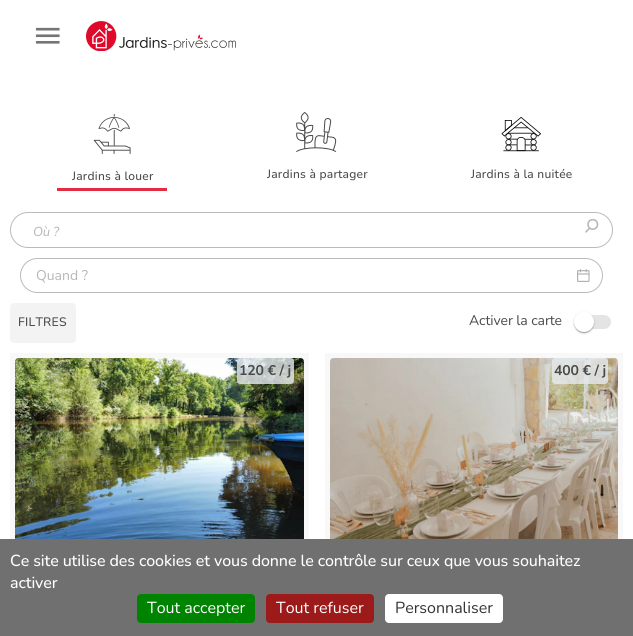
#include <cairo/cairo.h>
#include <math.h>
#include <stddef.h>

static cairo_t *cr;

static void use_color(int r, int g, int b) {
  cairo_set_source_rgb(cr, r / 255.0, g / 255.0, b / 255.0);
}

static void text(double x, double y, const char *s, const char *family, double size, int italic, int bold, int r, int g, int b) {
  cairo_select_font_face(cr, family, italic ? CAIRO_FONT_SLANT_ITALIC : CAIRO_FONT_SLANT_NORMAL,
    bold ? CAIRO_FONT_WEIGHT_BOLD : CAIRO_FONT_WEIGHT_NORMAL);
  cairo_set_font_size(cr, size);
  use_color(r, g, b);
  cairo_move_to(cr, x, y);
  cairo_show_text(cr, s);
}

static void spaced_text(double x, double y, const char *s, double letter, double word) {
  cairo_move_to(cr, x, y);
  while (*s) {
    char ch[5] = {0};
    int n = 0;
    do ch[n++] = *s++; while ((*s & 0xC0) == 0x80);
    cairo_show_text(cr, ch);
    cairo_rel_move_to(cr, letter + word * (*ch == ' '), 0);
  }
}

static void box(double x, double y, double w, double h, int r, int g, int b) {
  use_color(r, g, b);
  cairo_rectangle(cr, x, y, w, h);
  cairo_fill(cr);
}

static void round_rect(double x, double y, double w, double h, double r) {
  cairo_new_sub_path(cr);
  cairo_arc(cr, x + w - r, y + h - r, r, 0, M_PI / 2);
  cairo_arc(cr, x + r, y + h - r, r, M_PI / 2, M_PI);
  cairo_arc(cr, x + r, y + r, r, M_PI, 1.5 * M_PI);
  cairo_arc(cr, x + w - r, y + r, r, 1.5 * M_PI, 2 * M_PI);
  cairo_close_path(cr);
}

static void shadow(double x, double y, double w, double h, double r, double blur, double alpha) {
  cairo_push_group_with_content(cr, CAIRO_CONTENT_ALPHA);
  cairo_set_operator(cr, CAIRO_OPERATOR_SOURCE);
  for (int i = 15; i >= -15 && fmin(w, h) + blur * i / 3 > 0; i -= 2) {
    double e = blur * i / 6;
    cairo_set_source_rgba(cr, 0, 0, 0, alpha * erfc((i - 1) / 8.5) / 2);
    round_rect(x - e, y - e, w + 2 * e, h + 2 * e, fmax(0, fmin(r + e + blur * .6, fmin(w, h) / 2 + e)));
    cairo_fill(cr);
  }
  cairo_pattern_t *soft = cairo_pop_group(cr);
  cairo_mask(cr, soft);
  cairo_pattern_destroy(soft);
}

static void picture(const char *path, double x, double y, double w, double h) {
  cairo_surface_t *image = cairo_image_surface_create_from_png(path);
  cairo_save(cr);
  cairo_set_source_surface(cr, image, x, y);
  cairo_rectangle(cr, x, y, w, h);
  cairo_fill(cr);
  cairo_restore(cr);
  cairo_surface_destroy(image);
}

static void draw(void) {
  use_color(255, 255, 255);
  cairo_paint(cr);
  picture("img_01.png", 35, 27, 25, 17);
  picture("img_02.png", 86, 21, 150, 30);
  picture("img_03.png", 93, 114, 38, 40);
  box(57, 188, 110, 3, 225, 44, 66);
  picture("img_04.png", 296, 112, 41, 40);
  picture("img_05.png", 501, 116, 40, 36);
  round_rect(10.5, 212.5, 602, 35, 17.5);
  use_color(187, 187, 187);
  cairo_set_line_width(cr, 1);
  cairo_stroke(cr);
  picture("img_06.png", 585, 219, 14, 14);
  round_rect(20.5, 258.5, 582, 34, 17);
  cairo_stroke(cr);
  picture("img_07.png", 577, 269, 13, 13);
  use_color(243, 243, 243);
  round_rect(10, 303, 66, 40, 4);
  cairo_fill(cr);
  use_color(228, 228, 228);
  round_rect(577, 315, 34, 14, 7);
  cairo_fill(cr);
  use_color(0, 0, 0);
  shadow(574, 313, 20, 20, 10, 1.5, 0.12);
  shadow(574, 313, 20, 20, 10, 0.5, 0.14);
  shadow(575, 315, 18, 18, 9, 0.5, 0.2);
  use_color(255, 255, 255);
  cairo_arc(cr, 584, 322, 10, 0, 2 * M_PI);
  cairo_fill(cr);
  box(10, 353, 299, 186, 248, 248, 248);
  picture("img_08.png", 15, 358, 289, 181);
  cairo_set_source_rgba(cr, 0.894, 0.914, 0.929, 0.8);
  round_rect(237, 358, 57, 26, 3);
  cairo_fill(cr);
  box(325, 353, 298, 186, 248, 248, 248);
  picture("img_09.png", 330, 358, 288, 181);
  cairo_set_source_rgba(cr, 0.894, 0.914, 0.929, 0.8);
  round_rect(552, 358, 56, 26, 3);
  cairo_fill(cr);
  box(0, 539, 633, 97, 112, 112, 112);
  use_color(0, 131, 0);
  round_rect(137, 594, 118, 29, 4);
  cairo_fill(cr);
  use_color(156, 26, 26);
  round_rect(266, 594, 108, 29, 4);
  cairo_fill(cr);
  use_color(255, 255, 255);
  round_rect(385, 594, 118, 29, 4);
  cairo_fill(cr);
  cairo_select_font_face(cr, "Nunito Medium", CAIRO_FONT_SLANT_NORMAL, CAIRO_FONT_WEIGHT_NORMAL);
  cairo_set_font_size(cr, 12);
  use_color(74, 74, 74);
  spaced_text(72, 180, "Jardins à louer", 0.25, 0);
  spaced_text(267, 178, "Jardins à partager", 0.25, 0);
  spaced_text(471, 178, "Jardins à la nuitée", 0.25, 0);
  cairo_select_font_face(cr, "Nunito", CAIRO_FONT_SLANT_ITALIC, CAIRO_FONT_WEIGHT_NORMAL);
  cairo_set_font_size(cr, 13);
  use_color(183, 183, 183);
  spaced_text(33, 236, "Où ?", -0.1, 0);
  text(36, 280, "Quand ?", "Nunito", 14, 0, 0, 183, 183, 183);
  cairo_select_font_face(cr, "Nunito Medium", CAIRO_FONT_SLANT_NORMAL, CAIRO_FONT_WEIGHT_NORMAL);
  cairo_set_font_size(cr, 12.25);
  use_color(74, 74, 74);
  spaced_text(18, 326, "FILTRES", 0.25, 0);
  cairo_select_font_face(cr, "Nunito", CAIRO_FONT_SLANT_NORMAL, CAIRO_FONT_WEIGHT_NORMAL);
  cairo_set_font_size(cr, 14);
  spaced_text(469, 325, "Activer la carte", -0.1, 0);
  cairo_select_font_face(cr, "Nunito", CAIRO_FONT_SLANT_NORMAL, CAIRO_FONT_WEIGHT_BOLD);
  spaced_text(239, 375, "120 € / j", -0.1, 0);
  spaced_text(554, 375, "400 € / j", -0.1, 0);
  cairo_select_font_face(cr, "Nunito Medium", CAIRO_FONT_SLANT_NORMAL, CAIRO_FONT_WEIGHT_NORMAL);
  cairo_set_font_size(cr, 16);
  use_color(255, 255, 255);
  spaced_text(10, 566, "Ce site utilise des cookies et vous donne le contrôle sur ceux que vous souhaitez", -0.1, 0);
  spaced_text(10, 588, "activer", -0.1, 0);
  text(147, 613, "Tout accepter", "Nunito", 16, 0, 0, 255, 255, 255);
  text(276, 613, "Tout refuser", "Nunito", 16, 0, 0, 255, 255, 255);
  text(395, 613, "Personnaliser", "Nunito", 16, 0, 0, 51, 51, 51);
}

int main(void) {
  cairo_surface_t *surface = cairo_image_surface_create(CAIRO_FORMAT_RGB24, 633, 636);
  cr = cairo_create(surface);
  cairo_font_options_t *options = cairo_font_options_create();
  cairo_font_options_set_hint_metrics(options, CAIRO_HINT_METRICS_OFF);
  cairo_font_options_set_hint_style(options, CAIRO_HINT_STYLE_NONE);
  cairo_set_font_options(cr, options);
  cairo_set_miter_limit(cr, 4);
  draw();
  cairo_surface_write_to_png(surface, "out.png");
  cairo_font_options_destroy(options);
  cairo_destroy(cr);
  cairo_surface_destroy(surface);
  return 0;
}
